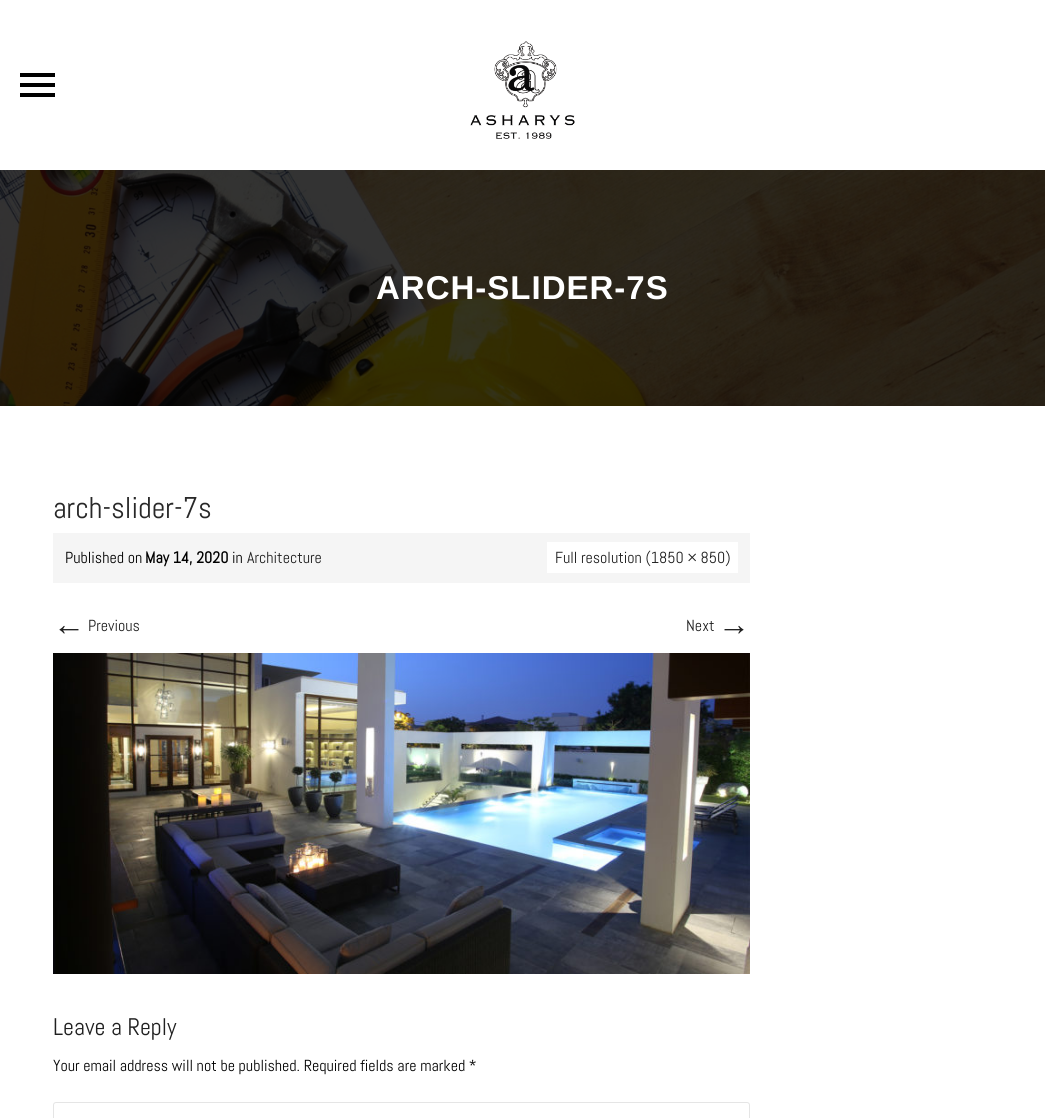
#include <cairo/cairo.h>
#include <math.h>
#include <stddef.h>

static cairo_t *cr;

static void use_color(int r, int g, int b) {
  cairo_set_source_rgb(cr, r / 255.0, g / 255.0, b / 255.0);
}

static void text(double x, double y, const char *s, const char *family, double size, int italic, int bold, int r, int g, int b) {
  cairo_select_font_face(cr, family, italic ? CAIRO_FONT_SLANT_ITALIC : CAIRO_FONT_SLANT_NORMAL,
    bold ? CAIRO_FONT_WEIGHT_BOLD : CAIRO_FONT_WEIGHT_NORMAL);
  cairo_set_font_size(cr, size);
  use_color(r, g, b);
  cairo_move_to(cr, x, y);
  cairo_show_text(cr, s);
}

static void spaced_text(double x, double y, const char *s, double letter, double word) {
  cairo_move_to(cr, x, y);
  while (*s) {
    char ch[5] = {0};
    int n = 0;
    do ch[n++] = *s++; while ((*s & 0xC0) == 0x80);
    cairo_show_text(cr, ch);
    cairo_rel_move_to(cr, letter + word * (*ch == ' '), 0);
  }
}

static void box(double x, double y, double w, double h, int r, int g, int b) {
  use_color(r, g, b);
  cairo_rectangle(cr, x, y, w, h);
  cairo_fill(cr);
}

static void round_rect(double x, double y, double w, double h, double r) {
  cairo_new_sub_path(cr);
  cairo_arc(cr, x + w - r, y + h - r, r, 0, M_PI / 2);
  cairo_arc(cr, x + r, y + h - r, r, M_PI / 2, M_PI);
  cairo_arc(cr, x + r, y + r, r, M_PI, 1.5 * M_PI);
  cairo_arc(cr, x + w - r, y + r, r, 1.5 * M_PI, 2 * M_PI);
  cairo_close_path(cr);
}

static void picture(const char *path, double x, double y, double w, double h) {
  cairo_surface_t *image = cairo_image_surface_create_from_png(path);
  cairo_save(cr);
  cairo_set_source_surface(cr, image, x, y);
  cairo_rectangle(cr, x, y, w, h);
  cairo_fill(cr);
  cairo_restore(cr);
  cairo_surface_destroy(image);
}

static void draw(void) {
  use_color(255, 255, 255);
  cairo_paint(cr);
  box(20, 83, 35, 4, 0, 0, 0);
  box(20, 73, 35, 4, 0, 0, 0);
  box(20, 93, 35, 4, 0, 0, 0);
  picture("img_01.png", 470, 41, 105, 98);
  picture("img_02.png", 0, 170, 1045, 236);
  box(53, 533, 697, 50, 245, 245, 245);
  box(547, 542, 191, 31, 255, 255, 255);
  picture("img_03.png", 53, 653, 697, 321);
  round_rect(53.5, 1102.5, 696, 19, 2.5);
  use_color(229, 229, 229);
  cairo_set_line_width(cr, 1);
  cairo_stroke(cr);
  cairo_select_font_face(cr, "Arimo", CAIRO_FONT_SLANT_NORMAL, CAIRO_FONT_WEIGHT_BOLD);
  cairo_set_font_size(cr, 33);
  use_color(255, 255, 255);
  spaced_text(376, 299, "ARCH-SLIDER-7S", 1, 0);
  text(53, 518, "arch-slider-7s", "Abel", 30, 0, 0, 40, 40, 40);
  text(65, 563, "Published on", "Abel", 16, 0, 0, 0, 0, 0);
  text(145, 563, "May 14, 2020", "Abel", 16, 0, 1, 0, 0, 0);
  text(232, 563, "in", "Abel", 16, 0, 0, 0, 0, 0);
  text(247, 563, "Architecture", "Abel", 16, 0, 0, 32, 32, 32);
  text(555, 563, "Full resolution (1850 × 850)", "Abel", 16, 0, 0, 32, 32, 32);
  text(53, 635, "←", "Liberation Sans", 32, 0, 0, 32, 32, 32);
  text(88, 631, "Previous", "Abel", 16, 0, 0, 32, 32, 32);
  text(686, 631, "Next", "Abel", 16, 0, 0, 32, 32, 32);
  text(718, 635, "→", "Liberation Sans", 32, 0, 0, 32, 32, 32);
  text(53, 1035, "Leave a Reply", "Abel", 24, 0, 0, 32, 32, 32);
  text(53, 1071, "Your email address will not be published. Required fields are marked *", "Abel", 16, 0, 0, 0, 0, 0);
}

int main(void) {
  cairo_surface_t *surface = cairo_image_surface_create(CAIRO_FORMAT_RGB24, 1045, 1118);
  cr = cairo_create(surface);
  cairo_font_options_t *options = cairo_font_options_create();
  cairo_font_options_set_hint_metrics(options, CAIRO_HINT_METRICS_OFF);
  cairo_font_options_set_hint_style(options, CAIRO_HINT_STYLE_NONE);
  cairo_set_font_options(cr, options);
  cairo_set_miter_limit(cr, 4);
  draw();
  cairo_surface_write_to_png(surface, "out.png");
  cairo_font_options_destroy(options);
  cairo_destroy(cr);
  cairo_surface_destroy(surface);
  return 0;
}
